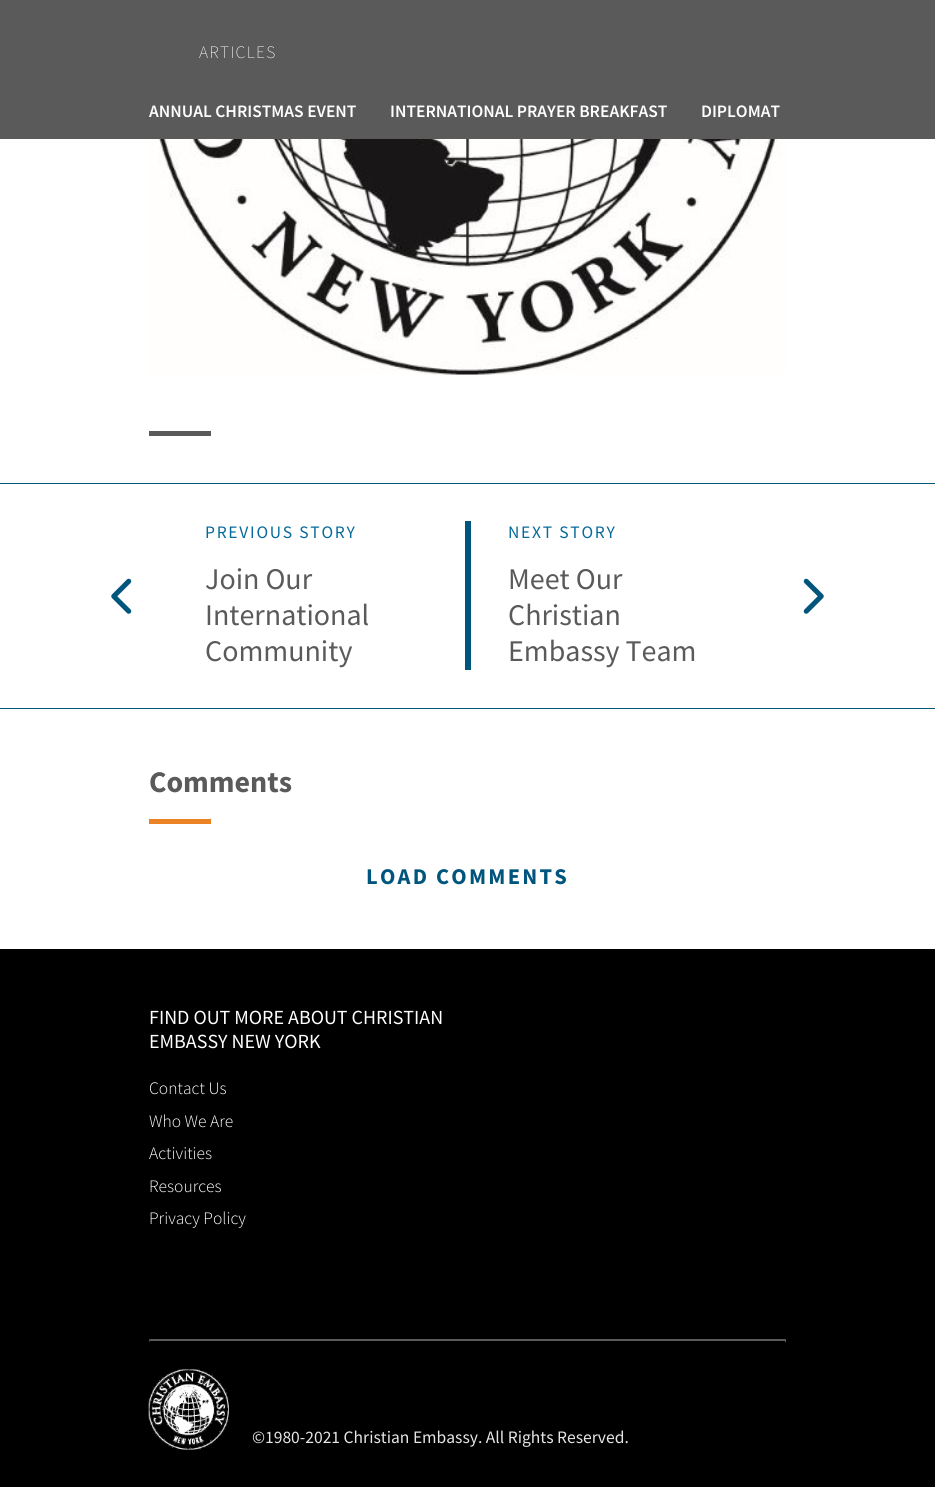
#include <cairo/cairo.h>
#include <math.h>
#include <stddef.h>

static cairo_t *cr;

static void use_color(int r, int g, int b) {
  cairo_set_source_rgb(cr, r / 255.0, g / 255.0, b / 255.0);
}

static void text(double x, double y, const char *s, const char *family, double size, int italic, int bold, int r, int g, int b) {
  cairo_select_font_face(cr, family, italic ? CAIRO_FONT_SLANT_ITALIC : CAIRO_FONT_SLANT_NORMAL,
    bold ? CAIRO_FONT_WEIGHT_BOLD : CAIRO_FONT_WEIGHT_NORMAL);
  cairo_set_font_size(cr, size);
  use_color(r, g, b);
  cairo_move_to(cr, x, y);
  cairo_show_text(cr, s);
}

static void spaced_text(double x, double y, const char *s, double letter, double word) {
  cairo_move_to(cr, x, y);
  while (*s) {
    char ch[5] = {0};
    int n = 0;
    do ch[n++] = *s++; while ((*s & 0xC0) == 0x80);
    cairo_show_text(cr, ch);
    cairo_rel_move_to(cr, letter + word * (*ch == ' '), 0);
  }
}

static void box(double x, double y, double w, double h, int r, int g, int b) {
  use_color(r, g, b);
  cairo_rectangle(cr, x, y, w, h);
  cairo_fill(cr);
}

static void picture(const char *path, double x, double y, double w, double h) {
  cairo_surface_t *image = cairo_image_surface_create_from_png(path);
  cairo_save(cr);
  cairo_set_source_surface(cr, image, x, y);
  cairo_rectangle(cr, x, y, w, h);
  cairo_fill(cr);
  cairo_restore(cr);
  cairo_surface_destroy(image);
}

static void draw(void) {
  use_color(255, 255, 255);
  cairo_paint(cr);
  box(0, 0, 935, 139, 90, 90, 90);
  picture("img_01.png", 148, 139, 639, 236);
  box(149, 431, 62, 5, 90, 90, 90);
  box(0, 483, 935, 1, 0, 85, 125);
  box(0, 708, 935, 1, 0, 85, 125);
  box(465, 521, 6, 149, 0, 85, 125);
  picture("img_02.png", 111, 578, 21, 36);
  picture("img_03.png", 803, 578, 21, 36);
  box(149, 819, 62, 5, 235, 130, 35);
  box(0, 949, 935, 538, 0, 0, 0);
  box(149, 1339, 637, 1, 90, 90, 90);
  box(785, 1339, 1, 3, 90, 90, 90);
  box(149, 1340, 637, 1, 90, 90, 90);
  box(149, 1339, 1, 3, 60, 60, 60);
  picture("img_04.png", 148, 1369, 81, 81);
  cairo_select_font_face(cr, "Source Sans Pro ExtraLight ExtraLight", CAIRO_FONT_SLANT_NORMAL, CAIRO_FONT_WEIGHT_NORMAL);
  cairo_set_font_size(cr, 17.5);
  use_color(255, 255, 255);
  spaced_text(199, 58, "ARTICLES", 1.25, 0);
  text(149, 117, "ANNUAL CHRISTMAS EVENT", "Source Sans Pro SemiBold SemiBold", 17.5, 0, 0, 255, 255, 255);
  text(390, 117, "INTERNATIONAL PRAYER BREAKFAST", "Source Sans Pro SemiBold SemiBold", 17.5, 0, 0, 255, 255, 255);
  text(701, 117, "DIPLOMAT", "Source Sans Pro SemiBold SemiBold", 17.5, 0, 0, 255, 255, 255);
  cairo_select_font_face(cr, "Source Sans Pro", CAIRO_FONT_SLANT_NORMAL, CAIRO_FONT_WEIGHT_NORMAL);
  use_color(5, 105, 155);
  spaced_text(205, 538, "PREVIOUS STORY", 1.75, 0);
  text(205, 589, "Join Our", "Source Sans Pro", 30, 0, 0, 90, 90, 90);
  text(205, 625, "International", "Source Sans Pro", 30, 0, 0, 90, 90, 90);
  text(205, 661, "Community", "Source Sans Pro", 30, 0, 0, 90, 90, 90);
  cairo_set_font_size(cr, 17.5);
  use_color(5, 105, 155);
  spaced_text(508, 538, "NEXT STORY", 1.75, 0);
  text(508, 589, "Meet Our", "Source Sans Pro", 30, 0, 0, 90, 90, 90);
  text(508, 625, "Christian", "Source Sans Pro", 30, 0, 0, 90, 90, 90);
  text(508, 661, "Embassy Team", "Source Sans Pro", 30, 0, 0, 90, 90, 90);
  text(149, 792, "Comments", "Source Sans Pro", 30, 0, 1, 90, 90, 90);
  cairo_set_font_size(cr, 22.5);
  use_color(0, 85, 125);
  spaced_text(366, 884, "LOAD COMMENTS", 2.25, 0);
  text(149, 1024, "FIND OUT MORE ABOUT CHRISTIAN", "Source Sans Pro", 20, 0, 0, 255, 255, 255);
  text(149, 1048, "EMBASSY NEW YORK", "Source Sans Pro", 20, 0, 0, 255, 255, 255);
  text(149, 1094, "Contact Us", "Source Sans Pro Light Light", 17.5, 0, 0, 255, 255, 255);
  text(149, 1127, "Who We Are", "Source Sans Pro Light Light", 17.5, 0, 0, 255, 255, 255);
  text(149, 1159, "Activities", "Source Sans Pro Light Light", 17.5, 0, 0, 255, 255, 255);
  text(149, 1192, "Resources", "Source Sans Pro Light Light", 17.5, 0, 0, 255, 255, 255);
  text(149, 1224, "Privacy Policy", "Source Sans Pro Light Light", 17.5, 0, 0, 255, 255, 255);
  text(252, 1443, "©1980-2021 Christian Embassy. All Rights Reserved.", "Source Sans Pro", 17.5, 0, 0, 230, 230, 230);
}

int main(void) {
  cairo_surface_t *surface = cairo_image_surface_create(CAIRO_FORMAT_RGB24, 935, 1487);
  cr = cairo_create(surface);
  cairo_font_options_t *options = cairo_font_options_create();
  cairo_font_options_set_hint_metrics(options, CAIRO_HINT_METRICS_OFF);
  cairo_font_options_set_hint_style(options, CAIRO_HINT_STYLE_NONE);
  cairo_set_font_options(cr, options);
  cairo_set_miter_limit(cr, 4);
  draw();
  cairo_surface_write_to_png(surface, "out.png");
  cairo_font_options_destroy(options);
  cairo_destroy(cr);
  cairo_surface_destroy(surface);
  return 0;
}
